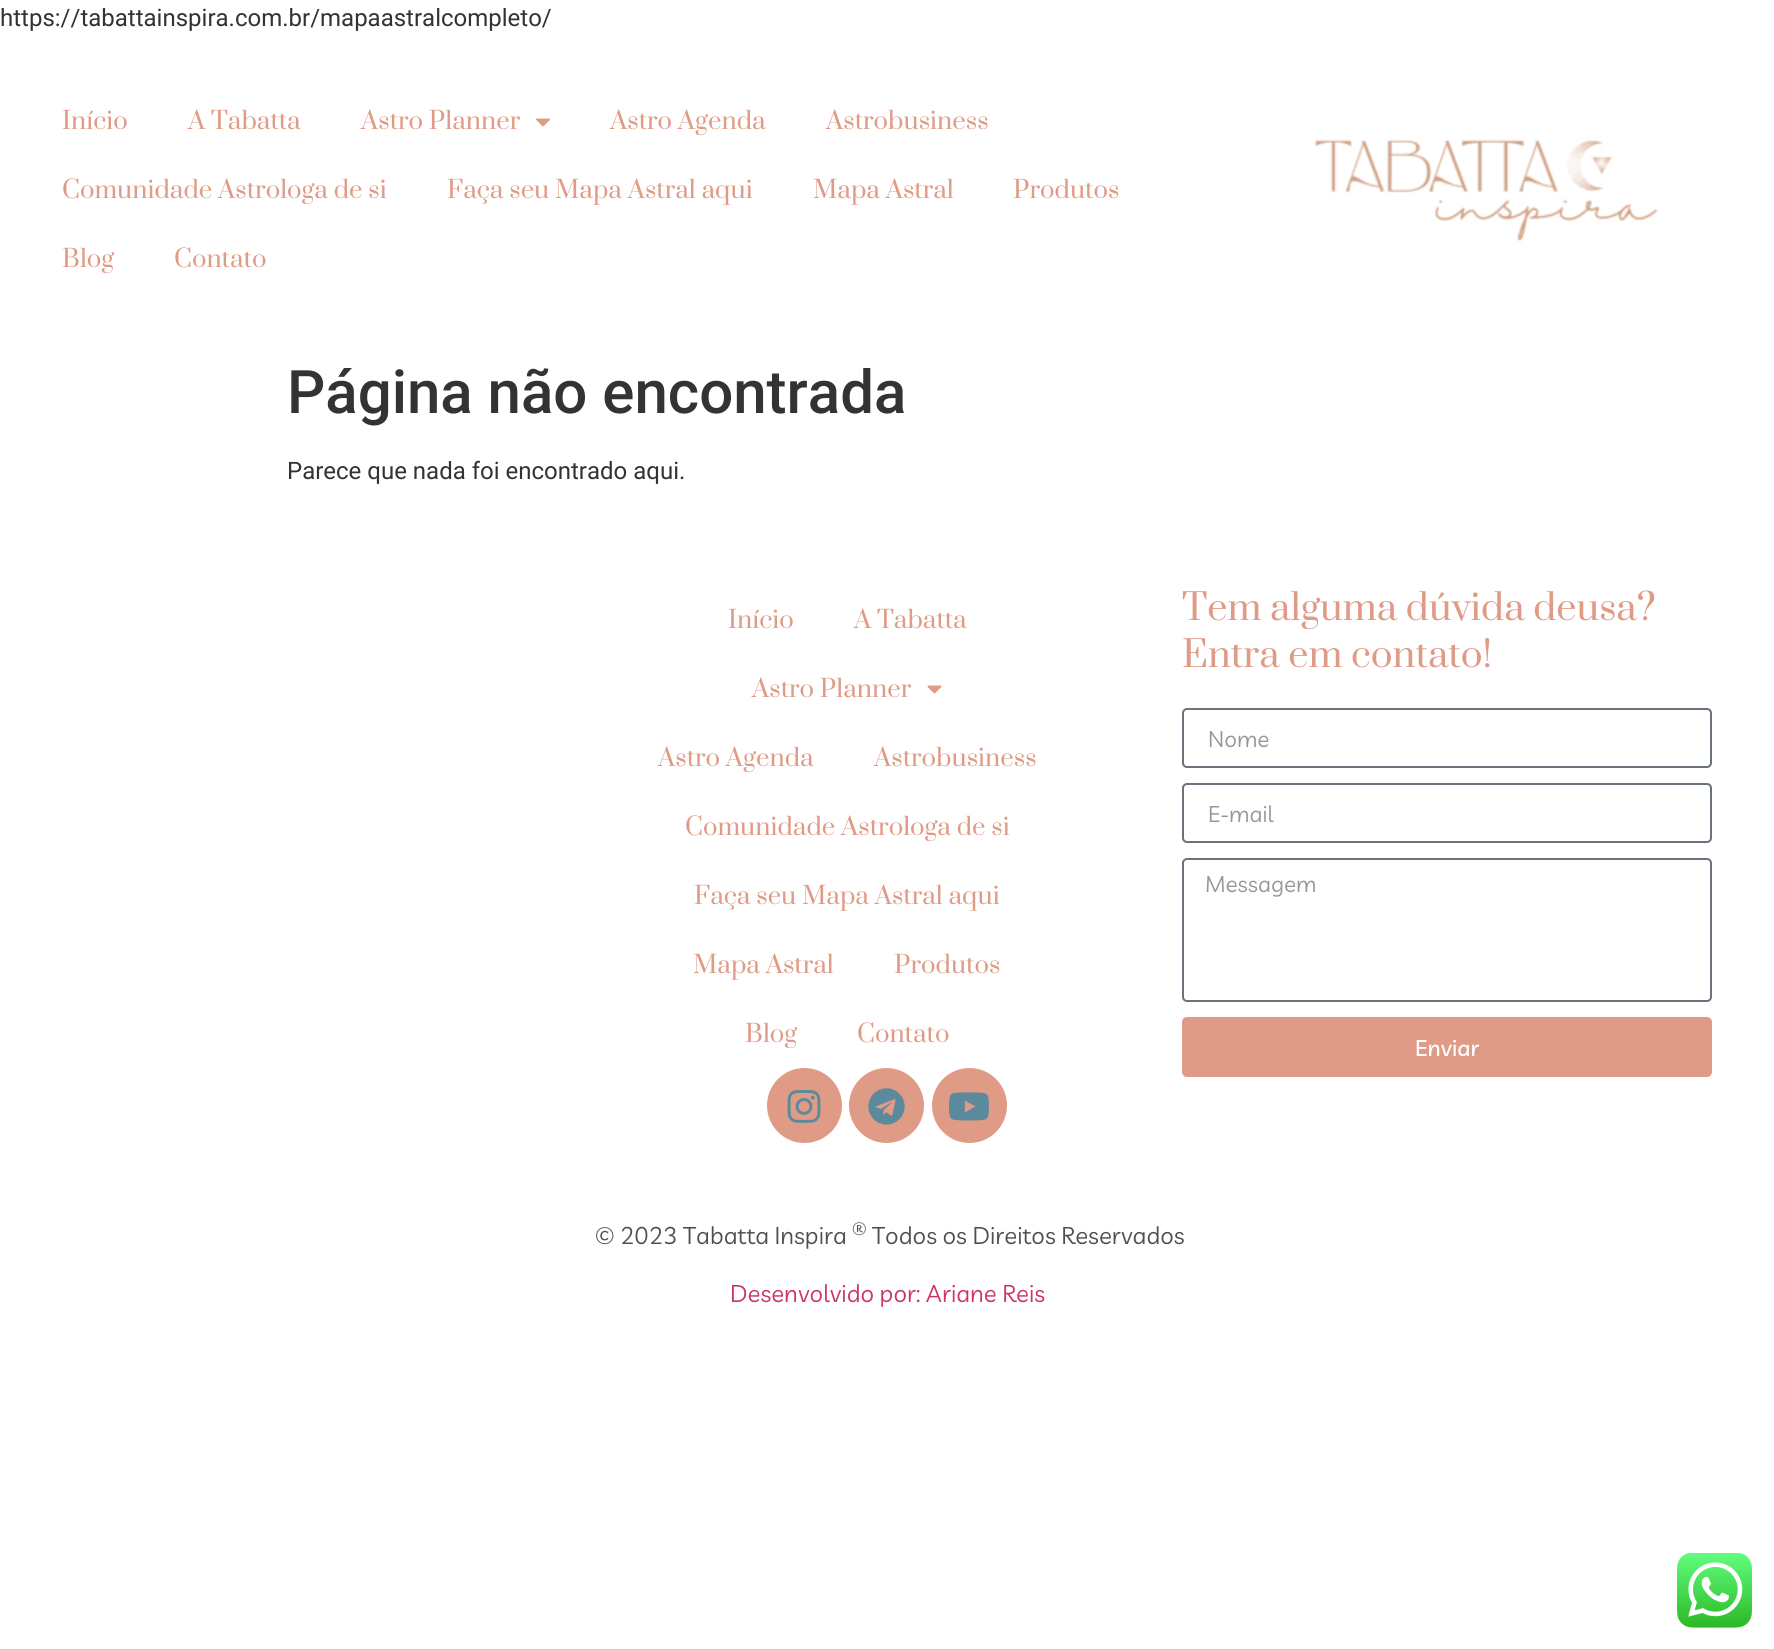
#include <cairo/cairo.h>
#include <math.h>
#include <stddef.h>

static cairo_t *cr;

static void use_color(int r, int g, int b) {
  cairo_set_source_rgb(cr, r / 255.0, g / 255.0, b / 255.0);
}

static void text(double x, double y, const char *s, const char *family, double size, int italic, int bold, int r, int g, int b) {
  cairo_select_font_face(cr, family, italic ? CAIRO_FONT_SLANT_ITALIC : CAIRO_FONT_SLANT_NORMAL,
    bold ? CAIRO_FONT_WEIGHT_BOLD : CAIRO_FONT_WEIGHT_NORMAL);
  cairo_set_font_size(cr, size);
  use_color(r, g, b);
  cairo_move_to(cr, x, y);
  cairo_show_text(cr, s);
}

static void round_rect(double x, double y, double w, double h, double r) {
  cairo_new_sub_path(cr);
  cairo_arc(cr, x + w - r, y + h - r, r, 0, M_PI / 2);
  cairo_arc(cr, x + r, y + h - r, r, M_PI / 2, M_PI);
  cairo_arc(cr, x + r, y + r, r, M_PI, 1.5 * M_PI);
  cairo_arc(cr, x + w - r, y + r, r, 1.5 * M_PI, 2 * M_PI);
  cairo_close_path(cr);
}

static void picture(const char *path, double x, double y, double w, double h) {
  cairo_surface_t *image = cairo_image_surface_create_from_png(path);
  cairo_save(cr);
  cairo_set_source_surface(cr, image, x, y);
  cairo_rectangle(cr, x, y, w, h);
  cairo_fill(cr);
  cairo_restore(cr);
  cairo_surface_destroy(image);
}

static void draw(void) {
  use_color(255, 255, 255);
  cairo_paint(cr);
  picture("img_01.png", 536, 118, 14, 9);
  picture("img_02.png", 1315, 139, 343, 103);
  picture("img_03.png", 927, 685, 15, 9);
  use_color(224, 155, 134);
  cairo_arc(cr, 804.5, 1105.5, 37.5, 0, 2 * M_PI);
  cairo_fill(cr);
  picture("img_04.png", 787, 1089, 34, 34);
  cairo_arc(cr, 886.5, 1105.5, 37.5, 0, 2 * M_PI);
  cairo_fill(cr);
  picture("img_05.png", 868, 1088, 37, 37);
  cairo_arc(cr, 969.5, 1105.5, 37.5, 0, 2 * M_PI);
  cairo_fill(cr);
  picture("img_06.png", 949, 1092, 40, 29);
  round_rect(1183, 709, 528, 58, 4);
  use_color(105, 114, 125);
  cairo_stroke(cr);
  round_rect(1183, 784, 528, 58, 4);
  cairo_stroke(cr);
  round_rect(1183, 859, 528, 142, 4);
  cairo_stroke(cr);
  use_color(224, 155, 134);
  round_rect(1182, 1017, 530, 60, 5);
  cairo_fill(cr);
  picture("img_07.png", 1677, 1553, 75, 75);
  text(0, 26, "https://tabattainspira.com.br/mapaastralcompleto/", "Roboto", 24, 0, 0, 51, 51, 51);
  text(62, 129, "Início", "Prata", 24, 0, 0, 224, 155, 134);
  text(188, 129, "A Tabatta", "Prata", 24, 0, 0, 224, 155, 134);
  text(361, 129, "Astro Planner", "Prata", 24, 0, 0, 224, 155, 134);
  text(610, 129, "Astro Agenda", "Prata", 24, 0, 0, 224, 155, 134);
  text(826, 129, "Astrobusiness", "Prata", 24, 0, 0, 224, 155, 134);
  text(62, 198, "Comunidade Astrologa de si", "Prata", 24, 0, 0, 224, 155, 134);
  text(447, 198, "Faça seu Mapa Astral aqui", "Prata", 24, 0, 0, 224, 155, 134);
  text(813, 198, "Mapa Astral", "Prata", 24, 0, 0, 224, 155, 134);
  text(1013, 198, "Produtos", "Prata", 24, 0, 0, 224, 155, 134);
  text(62, 267, "Blog", "Prata", 24, 0, 0, 224, 155, 134);
  text(174, 267, "Contato", "Prata", 24, 0, 0, 224, 155, 134);
  text(287, 413, "Página não encontrada", "Roboto Medium", 60, 0, 0, 51, 51, 51);
  text(287, 479, "Parece que nada foi encontrado aqui.", "Roboto", 24, 0, 0, 51, 51, 51);
  text(728, 628, "Início", "Prata", 24, 0, 0, 224, 155, 134);
  text(854, 628, "A Tabatta", "Prata", 24, 0, 0, 224, 155, 134);
  text(752, 697, "Astro Planner", "Prata", 24, 0, 0, 224, 155, 134);
  text(658, 766, "Astro Agenda", "Prata", 24, 0, 0, 224, 155, 134);
  text(874, 766, "Astrobusiness", "Prata", 24, 0, 0, 224, 155, 134);
  text(685, 835, "Comunidade Astrologa de si", "Prata", 24, 0, 0, 224, 155, 134);
  text(694, 904, "Faça seu Mapa Astral aqui", "Prata", 24, 0, 0, 224, 155, 134);
  text(693, 973, "Mapa Astral", "Prata", 24, 0, 0, 224, 155, 134);
  text(894, 973, "Produtos", "Prata", 24, 0, 0, 224, 155, 134);
  text(745, 1042, "Blog", "Prata", 24, 0, 0, 224, 155, 134);
  text(857, 1042, "Contato", "Prata", 24, 0, 0, 224, 155, 134);
  text(1182, 620, "Tem alguma dúvida deusa?", "Prata", 36, 0, 0, 224, 155, 134);
  text(1182, 667, "Entra em contato!", "Prata", 36, 0, 0, 224, 155, 134);
  text(1208, 747, "Nome", "Livvic", 22.5, 0, 0, 148, 150, 151);
  text(1208, 822, "E-mail", "Livvic", 22.5, 0, 0, 148, 150, 151);
  text(1205, 892, "Messagem", "Livvic", 22.5, 0, 0, 148, 150, 151);
  text(1415, 1056, "Enviar", "Livvic Medium", 22.5, 0, 0, 255, 255, 255);
  text(595, 1244, "© 2023 Tabatta Inspira", "Livvic", 24, 0, 0, 77, 80, 81);
  text(852, 1235, "®", "Livvic", 18, 0, 0, 77, 80, 81);
  text(872, 1244, "Todos os Direitos Reservados", "Livvic", 24, 0, 0, 77, 80, 81);
  text(730, 1302, "Desenvolvido por: Ariane Reis", "Livvic", 24, 0, 0, 204, 51, 102);
}

int main(void) {
  cairo_surface_t *surface = cairo_image_surface_create(CAIRO_FORMAT_RGB24, 1774, 1649);
  cr = cairo_create(surface);
  cairo_font_options_t *options = cairo_font_options_create();
  cairo_font_options_set_hint_metrics(options, CAIRO_HINT_METRICS_OFF);
  cairo_font_options_set_hint_style(options, CAIRO_HINT_STYLE_NONE);
  cairo_set_font_options(cr, options);
  cairo_set_miter_limit(cr, 4);
  draw();
  cairo_surface_write_to_png(surface, "out.png");
  cairo_font_options_destroy(options);
  cairo_destroy(cr);
  cairo_surface_destroy(surface);
  return 0;
}
